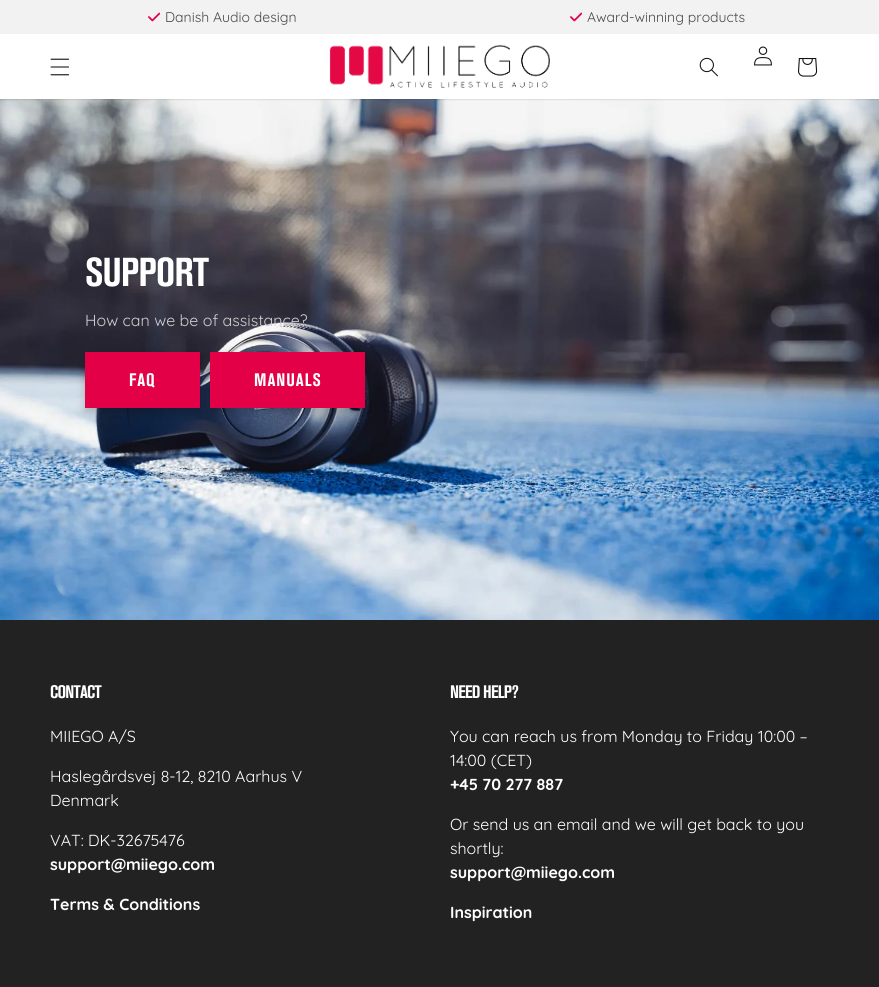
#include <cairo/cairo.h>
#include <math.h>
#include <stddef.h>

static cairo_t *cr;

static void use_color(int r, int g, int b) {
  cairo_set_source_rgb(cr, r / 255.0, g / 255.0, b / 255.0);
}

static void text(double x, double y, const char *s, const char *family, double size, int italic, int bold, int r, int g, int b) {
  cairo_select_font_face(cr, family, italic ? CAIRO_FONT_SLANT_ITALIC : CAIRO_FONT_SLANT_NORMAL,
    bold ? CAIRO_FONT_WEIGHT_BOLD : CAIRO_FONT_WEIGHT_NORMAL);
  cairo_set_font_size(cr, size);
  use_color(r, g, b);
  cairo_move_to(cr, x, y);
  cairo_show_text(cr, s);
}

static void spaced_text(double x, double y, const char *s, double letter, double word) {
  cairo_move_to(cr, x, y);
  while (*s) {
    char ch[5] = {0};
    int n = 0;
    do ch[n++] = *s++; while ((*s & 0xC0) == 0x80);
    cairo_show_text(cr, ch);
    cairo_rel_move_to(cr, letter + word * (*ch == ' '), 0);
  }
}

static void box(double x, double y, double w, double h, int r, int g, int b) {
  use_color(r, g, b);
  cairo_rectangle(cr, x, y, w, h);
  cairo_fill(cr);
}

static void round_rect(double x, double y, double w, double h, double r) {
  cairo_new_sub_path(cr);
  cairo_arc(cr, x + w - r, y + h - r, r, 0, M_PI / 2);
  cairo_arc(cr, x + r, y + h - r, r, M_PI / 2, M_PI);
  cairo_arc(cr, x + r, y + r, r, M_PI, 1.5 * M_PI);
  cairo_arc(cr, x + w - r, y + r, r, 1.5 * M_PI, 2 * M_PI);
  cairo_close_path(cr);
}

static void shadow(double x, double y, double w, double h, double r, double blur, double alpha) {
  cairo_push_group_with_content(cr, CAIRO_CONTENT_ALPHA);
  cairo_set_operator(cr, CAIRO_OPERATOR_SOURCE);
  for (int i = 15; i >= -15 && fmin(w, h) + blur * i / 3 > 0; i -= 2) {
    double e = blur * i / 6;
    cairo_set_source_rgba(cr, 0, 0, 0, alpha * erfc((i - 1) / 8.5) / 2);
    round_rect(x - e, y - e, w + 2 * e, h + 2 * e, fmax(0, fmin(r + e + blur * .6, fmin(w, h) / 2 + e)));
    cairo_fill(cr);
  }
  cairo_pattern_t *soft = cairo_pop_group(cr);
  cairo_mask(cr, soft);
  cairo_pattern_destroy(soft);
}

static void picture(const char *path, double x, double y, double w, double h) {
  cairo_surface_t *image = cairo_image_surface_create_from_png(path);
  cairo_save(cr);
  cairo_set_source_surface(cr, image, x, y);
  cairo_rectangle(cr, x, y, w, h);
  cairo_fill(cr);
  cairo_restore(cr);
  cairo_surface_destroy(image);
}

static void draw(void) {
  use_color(34, 34, 34);
  cairo_paint(cr);
  box(0, 0, 879, 34, 242, 242, 242);
  picture("img_01.png", 148, 12, 12, 10);
  picture("img_01.png", 570, 12, 12, 10);
  picture("img_07.png", 0, 99, 879, 521);
  use_color(0, 0, 0);
  shadow(0, 35, 879, 65, 0, 0.5, 0.1);
  box(0, 34, 879, 65, 255, 255, 255);
  picture("img_02.png", 50, 58, 20, 18);
  picture("img_03.png", 329, 44, 221, 44);
  picture("img_04.png", 699, 57, 19, 20);
  picture("img_05.png", 754, 46, 18, 20);
  picture("img_06.png", 798, 58, 20, 19);
  use_color(0, 0, 0);
  shadow(85, 356, 115, 56, 0, 4.5, 0.2);
  box(85, 352, 115, 56, 227, 0, 70);
  use_color(0, 0, 0);
  shadow(210, 356, 155, 56, 0, 4.5, 0.2);
  box(210, 352, 155, 56, 227, 0, 70);
  text(165, 22, "Danish Audio design", "Quicksand", 14, 0, 0, 74, 74, 74);
  text(587, 22, "Award-winning products", "Quicksand", 14, 0, 0, 74, 74, 74);
  cairo_select_font_face(cr, "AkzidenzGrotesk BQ", CAIRO_FONT_SLANT_NORMAL, CAIRO_FONT_WEIGHT_BOLD);
  cairo_set_font_size(cr, 40);
  use_color(255, 255, 255);
  spaced_text(85, 286, "SUPPORT", -0.75, 0);
  text(85, 326, "How can we be of assistance?", "Quicksand", 16, 0, 0, 206, 206, 209);
  cairo_select_font_face(cr, "AkzidenzGrotesk BQ", CAIRO_FONT_SLANT_NORMAL, CAIRO_FONT_WEIGHT_BOLD);
  cairo_set_font_size(cr, 18);
  use_color(255, 255, 255);
  spaced_text(129, 386, "FAQ", 1, 0);
  spaced_text(254, 386, "MANUALS", 1, 0);
  spaced_text(50, 698, "CONTACT", -0.75, 0);
  text(50, 742, "MIIEGO A/S", "Quicksand", 16, 0, 0, 255, 255, 255);
  text(50, 782, "Haslegårdsvej 8-12, 8210 Aarhus V", "Quicksand", 16, 0, 0, 255, 255, 255);
  text(50, 806, "Denmark", "Quicksand", 16, 0, 0, 255, 255, 255);
  text(50, 846, "VAT: DK-32675476", "Quicksand", 16, 0, 0, 255, 255, 255);
  text(50, 870, "support@miiego.com", "Quicksand", 16, 0, 1, 255, 255, 255);
  text(50, 910, "Terms & Conditions", "Quicksand", 16, 0, 1, 255, 255, 255);
  cairo_select_font_face(cr, "AkzidenzGrotesk BQ", CAIRO_FONT_SLANT_NORMAL, CAIRO_FONT_WEIGHT_BOLD);
  cairo_set_font_size(cr, 18);
  spaced_text(450, 698, "NEED HELP?", -0.75, 0);
  text(450, 742, "You can reach us from Monday to Friday 10:00 –", "Quicksand", 16, 0, 0, 255, 255, 255);
  text(450, 766, "14:00 (CET)", "Quicksand", 16, 0, 0, 255, 255, 255);
  text(450, 790, "+45 70 277 887", "Quicksand", 16, 0, 1, 255, 255, 255);
  text(450, 830, "Or send us an email and we will get back to you", "Quicksand", 16, 0, 0, 255, 255, 255);
  text(450, 854, "shortly:", "Quicksand", 16, 0, 0, 255, 255, 255);
  text(450, 878, "support@miiego.com", "Quicksand", 16, 0, 1, 255, 255, 255);
  text(450, 918, "Inspiration", "Quicksand", 16, 0, 1, 255, 255, 255);
}

int main(void) {
  cairo_surface_t *surface = cairo_image_surface_create(CAIRO_FORMAT_RGB24, 879, 987);
  cr = cairo_create(surface);
  cairo_font_options_t *options = cairo_font_options_create();
  cairo_font_options_set_hint_metrics(options, CAIRO_HINT_METRICS_OFF);
  cairo_font_options_set_hint_style(options, CAIRO_HINT_STYLE_NONE);
  cairo_set_font_options(cr, options);
  cairo_set_miter_limit(cr, 4);
  draw();
  cairo_surface_write_to_png(surface, "out.png");
  cairo_font_options_destroy(options);
  cairo_destroy(cr);
  cairo_surface_destroy(surface);
  return 0;
}
